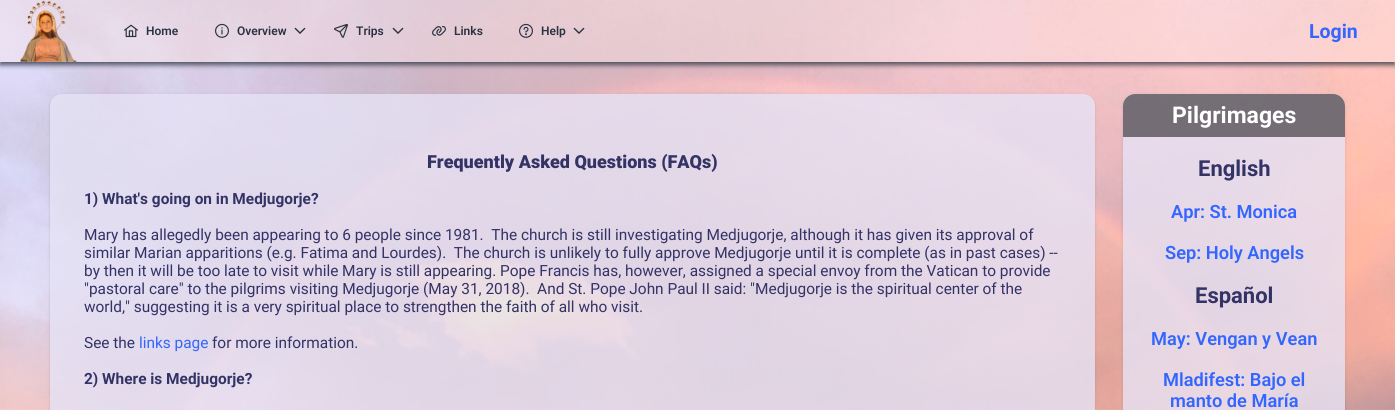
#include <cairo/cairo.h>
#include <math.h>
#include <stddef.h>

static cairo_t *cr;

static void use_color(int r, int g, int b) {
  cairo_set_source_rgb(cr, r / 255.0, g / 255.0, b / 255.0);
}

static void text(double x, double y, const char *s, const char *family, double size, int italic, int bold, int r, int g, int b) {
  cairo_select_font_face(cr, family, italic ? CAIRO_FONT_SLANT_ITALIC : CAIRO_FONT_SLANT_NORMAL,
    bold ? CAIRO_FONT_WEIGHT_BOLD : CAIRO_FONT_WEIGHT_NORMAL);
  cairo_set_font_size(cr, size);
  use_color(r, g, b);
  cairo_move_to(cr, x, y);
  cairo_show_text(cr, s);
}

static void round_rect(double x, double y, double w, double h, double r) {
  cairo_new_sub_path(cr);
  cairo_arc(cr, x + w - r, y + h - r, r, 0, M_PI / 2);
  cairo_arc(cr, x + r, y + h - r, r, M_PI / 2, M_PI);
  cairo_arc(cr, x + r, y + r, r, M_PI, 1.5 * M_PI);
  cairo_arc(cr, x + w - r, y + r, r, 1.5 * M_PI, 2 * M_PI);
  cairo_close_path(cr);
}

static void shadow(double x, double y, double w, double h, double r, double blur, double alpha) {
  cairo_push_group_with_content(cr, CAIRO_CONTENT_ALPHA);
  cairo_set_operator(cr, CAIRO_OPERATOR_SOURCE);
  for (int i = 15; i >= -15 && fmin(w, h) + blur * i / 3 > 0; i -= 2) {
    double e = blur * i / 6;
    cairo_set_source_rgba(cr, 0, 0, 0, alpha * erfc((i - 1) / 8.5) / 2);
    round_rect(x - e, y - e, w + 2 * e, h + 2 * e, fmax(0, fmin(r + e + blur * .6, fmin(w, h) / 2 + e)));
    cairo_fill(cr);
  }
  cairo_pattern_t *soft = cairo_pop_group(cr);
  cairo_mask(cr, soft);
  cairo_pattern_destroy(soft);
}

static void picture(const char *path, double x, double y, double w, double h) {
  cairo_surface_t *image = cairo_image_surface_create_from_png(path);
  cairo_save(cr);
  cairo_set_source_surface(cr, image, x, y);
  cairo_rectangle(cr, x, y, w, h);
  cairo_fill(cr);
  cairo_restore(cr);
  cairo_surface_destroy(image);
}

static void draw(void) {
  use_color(255, 255, 255);
  cairo_paint(cr);
  picture("img_01.png", 0, 0, 1395, 410);
  cairo_save(cr);
  cairo_rectangle(cr, 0, 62, 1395, 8);
  cairo_clip(cr);
  use_color(41, 50, 65);
  shadow(0, 3, 1395, 62, 0, 2.5, 0.8);
  cairo_restore(cr);
  cairo_set_source_rgba(cr, 1, 0.91, 0.91, 0.4);
  cairo_rectangle(cr, 0, 0, 94, 62);
  cairo_fill(cr);
  picture("img_02.png", 20, 0, 57, 62);
  cairo_rectangle(cr, 94, 0, 1203, 62);
  cairo_fill(cr);
  picture("img_03.png", 124, 24, 14, 14);
  picture("img_04.png", 215, 23, 14, 15);
  picture("img_05.png", 294, 27, 12, 7);
  picture("img_06.png", 334, 23, 14, 15);
  picture("img_07.png", 392, 27, 12, 7);
  picture("img_08.png", 432, 25, 14, 11);
  picture("img_09.png", 519, 23, 14, 15);
  picture("img_10.png", 573, 27, 12, 7);
  cairo_rectangle(cr, 1297, 0, 98, 62);
  cairo_fill(cr);
  cairo_save(cr);
  cairo_set_fill_rule(cr, CAIRO_FILL_RULE_EVEN_ODD);
  cairo_new_path(cr);
  cairo_move_to(cr, 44, 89);
  cairo_line_to(cr, 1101, 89);
  cairo_line_to(cr, 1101, 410);
  cairo_line_to(cr, 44, 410);
  cairo_close_path(cr);
  cairo_move_to(cr, 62, 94);
  cairo_line_to(cr, 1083, 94);
  cairo_curve_to(cr, 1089.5, 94, 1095, 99.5, 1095, 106);
  cairo_line_to(cr, 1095, 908);
  cairo_curve_to(cr, 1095, 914.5, 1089.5, 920, 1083, 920);
  cairo_line_to(cr, 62, 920);
  cairo_curve_to(cr, 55.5, 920, 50, 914.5, 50, 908);
  cairo_line_to(cr, 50, 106);
  cairo_curve_to(cr, 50, 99.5, 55.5, 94, 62, 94);
  cairo_close_path(cr);
  cairo_clip(cr);
  use_color(0, 0, 0);
  shadow(50, 95, 1045, 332, 12, 1.5, 0.12);
  cairo_restore(cr);
  cairo_set_source_rgba(cr, 0.902, 0.886, 0.961, 0.8);
  round_rect(50, 94, 1045, 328, 12);
  cairo_fill(cr);
  cairo_save(cr);
  cairo_set_fill_rule(cr, CAIRO_FILL_RULE_EVEN_ODD);
  cairo_new_path(cr);
  cairo_move_to(cr, 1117, 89);
  cairo_line_to(cr, 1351, 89);
  cairo_line_to(cr, 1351, 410);
  cairo_line_to(cr, 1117, 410);
  cairo_close_path(cr);
  cairo_move_to(cr, 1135, 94);
  cairo_line_to(cr, 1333, 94);
  cairo_curve_to(cr, 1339.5, 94, 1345, 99.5, 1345, 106);
  cairo_line_to(cr, 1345, 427);
  cairo_curve_to(cr, 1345, 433.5, 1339.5, 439, 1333, 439);
  cairo_line_to(cr, 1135, 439);
  cairo_curve_to(cr, 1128.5, 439, 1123, 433.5, 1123, 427);
  cairo_line_to(cr, 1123, 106);
  cairo_curve_to(cr, 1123, 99.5, 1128.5, 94, 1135, 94);
  cairo_close_path(cr);
  cairo_clip(cr);
  use_color(0, 0, 0);
  shadow(1123, 95, 222, 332, 12, 1.5, 0.12);
  cairo_restore(cr);
  round_rect(1123, 94, 222, 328, 12);
  cairo_fill(cr);
  cairo_set_source_rgba(cr, 0, 0, 0, 0.5);
  cairo_new_path(cr);
  cairo_move_to(cr, 1135, 94);
  cairo_line_to(cr, 1333, 94);
  cairo_curve_to(cr, 1339.5, 94, 1345, 99.5, 1345, 106);
  cairo_line_to(cr, 1345, 137);
  cairo_line_to(cr, 1123, 137);
  cairo_line_to(cr, 1123, 106);
  cairo_curve_to(cr, 1123, 99.5, 1128.5, 94, 1135, 94);
  cairo_close_path(cr);
  cairo_fill(cr);
  text(146, 35, "Home", "Roboto SemiBold", 12, 0, 0, 41, 50, 65);
  text(237, 35, "Overview", "Roboto SemiBold", 12, 0, 0, 41, 50, 65);
  text(356, 35, "Trips", "Roboto SemiBold", 12, 0, 0, 41, 50, 65);
  text(454, 35, "Links", "Roboto SemiBold", 12, 0, 0, 41, 50, 65);
  text(541, 35, "Help", "Roboto SemiBold", 12, 0, 0, 41, 50, 65);
  text(1309, 38, "Login", "Roboto", 19.5, 0, 1, 51, 102, 255);
  text(427, 168, "Frequently Asked Questions (FAQs)", "Roboto Black", 18, 0, 0, 51, 51, 102);
  text(84, 204, "1) What's going on in Medjugorje?", "Roboto", 15.4, 0, 1, 51, 51, 102);
  text(84, 240, "Mary has allegedly been appearing to 6 people since 1981.  The church is still investigating Medjugorje, although it has given its approval of", "Roboto", 15.4, 0, 0, 51, 51, 102);
  text(84, 258, "similar Marian apparitions (e.g. Fatima and Lourdes).  The church is unlikely to fully approve Medjugorje until it is complete (as in past cases) --", "Roboto", 15.4, 0, 0, 51, 51, 102);
  text(84, 276, "by then it will be too late to visit while Mary is still appearing. Pope Francis has, however, assigned a special envoy from the Vatican to provide", "Roboto", 15.4, 0, 0, 51, 51, 102);
  text(84, 294, "\"pastoral care\" to the pilgrims visiting Medjugorje (May 31, 2018).  And St. Pope John Paul II said: \"Medjugorje is the spiritual center of the", "Roboto", 15.4, 0, 0, 51, 51, 102);
  text(84, 312, "world,\" suggesting it is a very spiritual place to strengthen the faith of all who visit.", "Roboto", 15.4, 0, 0, 51, 51, 102);
  text(84, 348, "See the", "Roboto", 15.4, 0, 0, 51, 51, 102);
  text(139, 348, "links page", "Roboto", 15.4, 0, 0, 51, 102, 255);
  text(212, 348, "for more information.", "Roboto", 15.4, 0, 0, 51, 51, 102);
  text(84, 384, "2) Where is Medjugorje?", "Roboto", 15.4, 0, 1, 51, 51, 102);
  text(1172, 123, "Pilgrimages", "Roboto", 23, 0, 1, 255, 255, 255);
  text(1198, 176, "English", "Roboto", 22, 0, 1, 51, 51, 102);
  text(1171, 218, "Apr: St. Monica", "Roboto SemiBold", 18.25, 0, 0, 51, 102, 255);
  text(1165, 259, "Sep: Holy Angels", "Roboto SemiBold", 18.25, 0, 0, 51, 102, 255);
  text(1195, 303, "Español", "Roboto", 22, 0, 1, 51, 51, 102);
  text(1151, 345, "May: Vengan y Vean", "Roboto SemiBold", 18.25, 0, 0, 51, 102, 255);
  text(1163, 386, "Mladifest: Bajo el", "Roboto SemiBold", 18.25, 0, 0, 51, 102, 255);
  text(1170, 407, "manto de María", "Roboto SemiBold", 18.25, 0, 0, 51, 102, 255);
}

int main(void) {
  cairo_surface_t *surface = cairo_image_surface_create(CAIRO_FORMAT_RGB24, 1395, 410);
  cr = cairo_create(surface);
  cairo_font_options_t *options = cairo_font_options_create();
  cairo_font_options_set_hint_metrics(options, CAIRO_HINT_METRICS_OFF);
  cairo_font_options_set_hint_style(options, CAIRO_HINT_STYLE_NONE);
  cairo_set_font_options(cr, options);
  cairo_set_miter_limit(cr, 4);
  draw();
  cairo_surface_write_to_png(surface, "out.png");
  cairo_font_options_destroy(options);
  cairo_destroy(cr);
  cairo_surface_destroy(surface);
  return 0;
}
